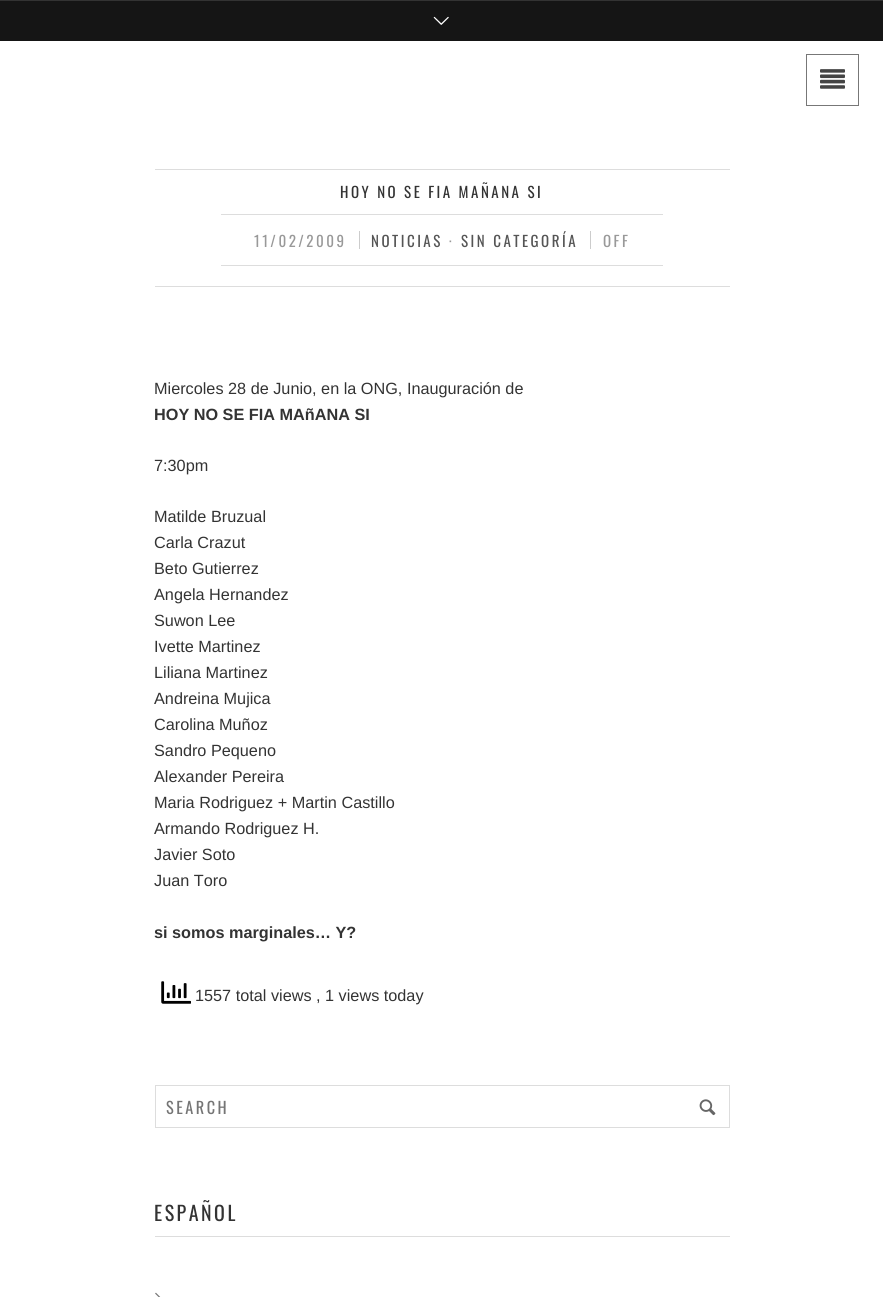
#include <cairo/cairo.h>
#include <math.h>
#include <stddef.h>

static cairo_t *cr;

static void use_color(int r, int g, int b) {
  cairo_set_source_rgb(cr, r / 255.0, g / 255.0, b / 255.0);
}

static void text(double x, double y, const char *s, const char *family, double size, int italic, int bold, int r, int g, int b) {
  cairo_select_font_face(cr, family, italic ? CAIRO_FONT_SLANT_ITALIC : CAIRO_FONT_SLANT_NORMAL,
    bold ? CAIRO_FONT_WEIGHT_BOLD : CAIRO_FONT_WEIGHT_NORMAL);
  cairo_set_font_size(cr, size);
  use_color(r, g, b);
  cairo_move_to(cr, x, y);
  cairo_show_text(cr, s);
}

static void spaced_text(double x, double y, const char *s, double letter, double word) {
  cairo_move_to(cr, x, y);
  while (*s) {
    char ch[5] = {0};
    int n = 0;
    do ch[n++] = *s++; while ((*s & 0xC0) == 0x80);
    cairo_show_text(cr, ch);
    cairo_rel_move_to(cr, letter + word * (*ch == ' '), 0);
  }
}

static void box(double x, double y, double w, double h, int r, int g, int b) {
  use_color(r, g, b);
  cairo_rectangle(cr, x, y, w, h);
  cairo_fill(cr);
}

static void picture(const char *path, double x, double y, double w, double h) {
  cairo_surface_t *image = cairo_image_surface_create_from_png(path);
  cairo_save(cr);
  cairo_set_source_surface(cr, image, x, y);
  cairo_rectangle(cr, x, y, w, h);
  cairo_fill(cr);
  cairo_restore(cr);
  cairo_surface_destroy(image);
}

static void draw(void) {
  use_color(255, 255, 255);
  cairo_paint(cr);
  box(0, 1, 883, 40, 21, 21, 21);
  box(0, 0, 883, 1, 51, 51, 51);
  picture("img_01.png", 433, 16, 16, 9);
  cairo_rectangle(cr, 806.5, 54.5, 52, 51);
  use_color(119, 119, 119);
  cairo_set_line_width(cr, 1);
  cairo_stroke(cr);
  picture("img_02.png", 820, 69, 25, 20);
  box(155, 169, 575, 1, 221, 221, 221);
  box(155, 286, 575, 1, 221, 221, 221);
  box(221, 214, 442, 1, 221, 221, 221);
  box(221, 265, 442, 1, 221, 221, 221);
  box(359, 231, 1, 18, 204, 204, 204);
  box(590, 231, 1, 18, 204, 204, 204);
  picture("img_03.png", 161, 981, 30, 23);
  cairo_rectangle(cr, 155.5, 1085.5, 574, 42);
  use_color(221, 221, 221);
  cairo_stroke(cr);
  picture("img_04.png", 699, 1099, 17, 17);
  box(155, 1236, 575, 1, 221, 221, 221);
  picture("img_05.png", 155, 1292, 6, 5);
  cairo_select_font_face(cr, "Oswald", CAIRO_FONT_SLANT_NORMAL, CAIRO_FONT_WEIGHT_NORMAL);
  cairo_set_font_size(cr, 15);
  use_color(51, 51, 51);
  spaced_text(340, 198, "HOY NO SE FIA MAÑANA SI", 2.5, 0);
  use_color(153, 153, 153);
  spaced_text(254, 247, "11/02/2009", 2.5, 0);
  use_color(85, 85, 85);
  spaced_text(371, 247, "NOTICIAS", 2.5, 0);
  use_color(153, 153, 153);
  spaced_text(449, 247, "·", 2.5, 0);
  use_color(85, 85, 85);
  spaced_text(461, 247, "SIN CATEGORÍA", 2.5, 0);
  use_color(153, 153, 153);
  spaced_text(603, 247, "OFF", 2.5, 0);
  text(154, 394, "Miercoles 28 de Junio, en la ONG, Inauguración de", "Liberation Sans", 16.25, 0, 0, 51, 51, 51);
  text(154, 420, "HOY NO SE FIA MAñANA SI", "Liberation Sans", 16.25, 0, 1, 51, 51, 51);
  text(154, 471, "7:30pm", "Liberation Sans", 16.25, 0, 0, 51, 51, 51);
  text(154, 522, "Matilde Bruzual", "Liberation Sans", 16.25, 0, 0, 51, 51, 51);
  text(154, 548, "Carla Crazut", "Liberation Sans", 16.25, 0, 0, 51, 51, 51);
  text(154, 574, "Beto Gutierrez", "Liberation Sans", 16.25, 0, 0, 51, 51, 51);
  text(154, 600, "Angela Hernandez", "Liberation Sans", 16.25, 0, 0, 51, 51, 51);
  text(154, 626, "Suwon Lee", "Liberation Sans", 16.25, 0, 0, 51, 51, 51);
  text(154, 652, "Ivette Martinez", "Liberation Sans", 16.25, 0, 0, 51, 51, 51);
  text(154, 678, "Liliana Martinez", "Liberation Sans", 16.25, 0, 0, 51, 51, 51);
  text(154, 704, "Andreina Mujica", "Liberation Sans", 16.25, 0, 0, 51, 51, 51);
  text(154, 730, "Carolina Muñoz", "Liberation Sans", 16.25, 0, 0, 51, 51, 51);
  text(154, 756, "Sandro Pequeno", "Liberation Sans", 16.25, 0, 0, 51, 51, 51);
  text(154, 782, "Alexander Pereira", "Liberation Sans", 16.25, 0, 0, 51, 51, 51);
  text(154, 808, "Maria Rodriguez + Martin Castillo", "Liberation Sans", 16.25, 0, 0, 51, 51, 51);
  text(154, 834, "Armando Rodriguez H.", "Liberation Sans", 16.25, 0, 0, 51, 51, 51);
  text(154, 860, "Javier Soto", "Liberation Sans", 16.25, 0, 0, 51, 51, 51);
  text(154, 886, "Juan Toro", "Liberation Sans", 16.25, 0, 0, 51, 51, 51);
  text(154, 938, "si somos marginales… Y?", "Liberation Sans", 16.25, 0, 1, 51, 51, 51);
  text(195, 1001, "1557 total views , 1 views today", "Liberation Sans", 16.25, 0, 0, 51, 51, 51);
  cairo_select_font_face(cr, "Oswald", CAIRO_FONT_SLANT_NORMAL, CAIRO_FONT_WEIGHT_NORMAL);
  use_color(117, 117, 117);
  spaced_text(166, 1114, "SEARCH", 2.5, 0);
  cairo_set_font_size(cr, 20);
  use_color(51, 51, 51);
  spaced_text(154, 1221, "ESPAÑOL", 2.5, 0);
}

int main(void) {
  cairo_surface_t *surface = cairo_image_surface_create(CAIRO_FORMAT_RGB24, 883, 1297);
  cr = cairo_create(surface);
  cairo_font_options_t *options = cairo_font_options_create();
  cairo_font_options_set_hint_metrics(options, CAIRO_HINT_METRICS_OFF);
  cairo_font_options_set_hint_style(options, CAIRO_HINT_STYLE_NONE);
  cairo_set_font_options(cr, options);
  cairo_set_miter_limit(cr, 4);
  draw();
  cairo_surface_write_to_png(surface, "out.png");
  cairo_font_options_destroy(options);
  cairo_destroy(cr);
  cairo_surface_destroy(surface);
  return 0;
}
